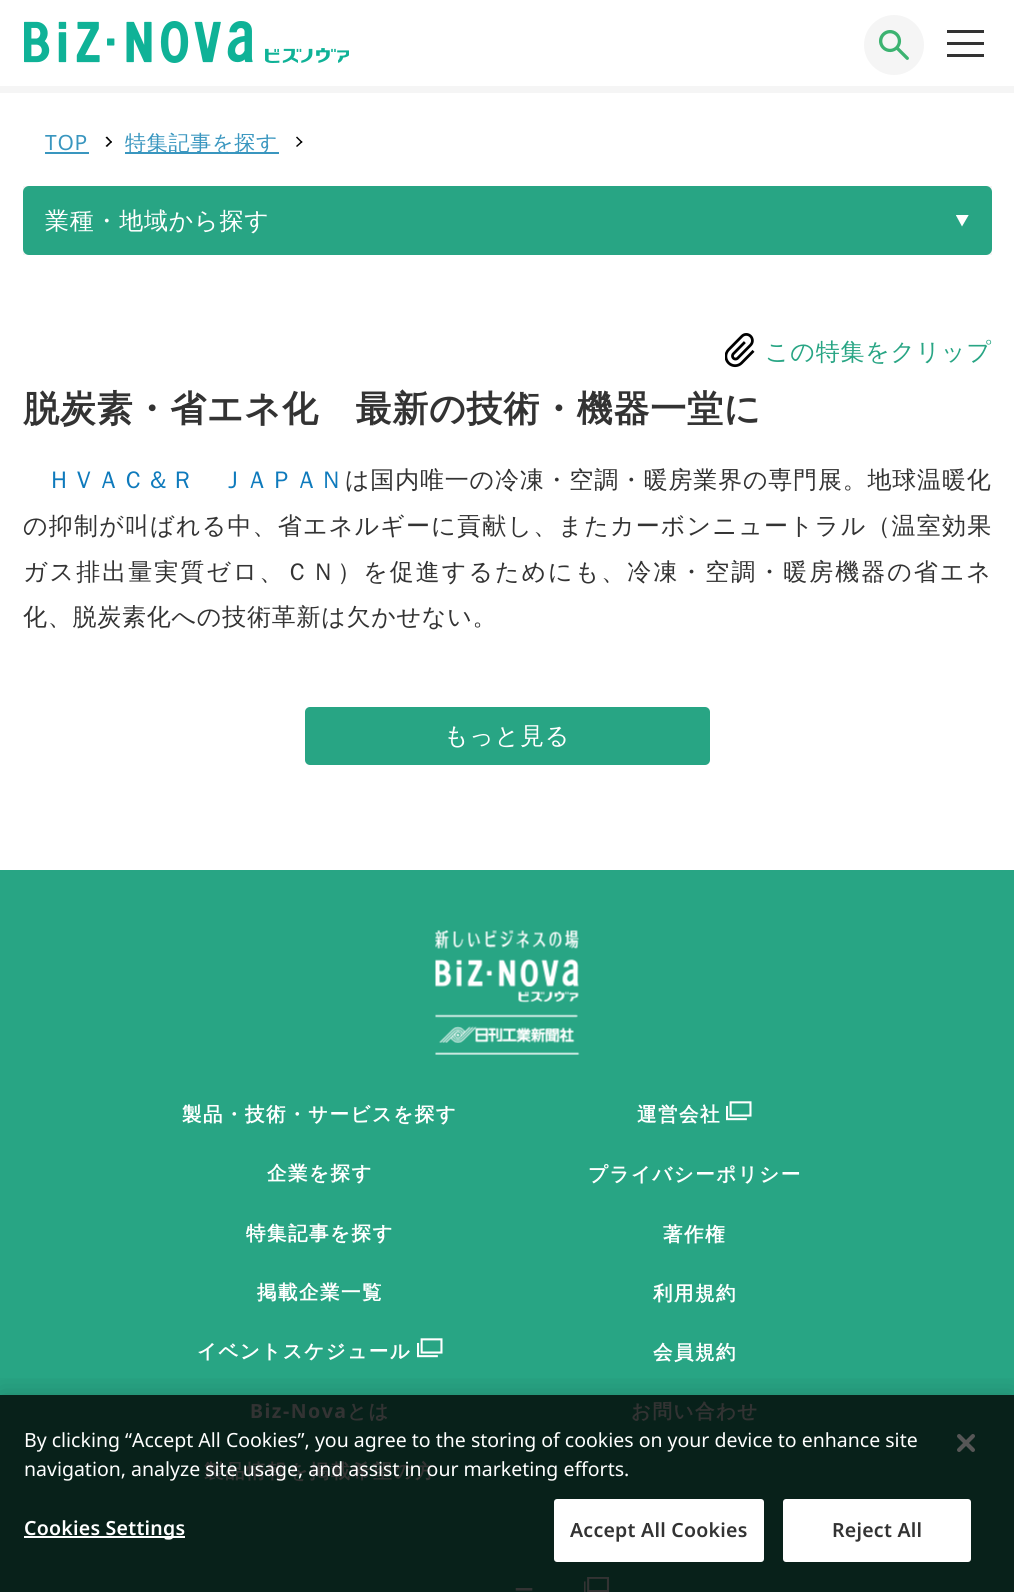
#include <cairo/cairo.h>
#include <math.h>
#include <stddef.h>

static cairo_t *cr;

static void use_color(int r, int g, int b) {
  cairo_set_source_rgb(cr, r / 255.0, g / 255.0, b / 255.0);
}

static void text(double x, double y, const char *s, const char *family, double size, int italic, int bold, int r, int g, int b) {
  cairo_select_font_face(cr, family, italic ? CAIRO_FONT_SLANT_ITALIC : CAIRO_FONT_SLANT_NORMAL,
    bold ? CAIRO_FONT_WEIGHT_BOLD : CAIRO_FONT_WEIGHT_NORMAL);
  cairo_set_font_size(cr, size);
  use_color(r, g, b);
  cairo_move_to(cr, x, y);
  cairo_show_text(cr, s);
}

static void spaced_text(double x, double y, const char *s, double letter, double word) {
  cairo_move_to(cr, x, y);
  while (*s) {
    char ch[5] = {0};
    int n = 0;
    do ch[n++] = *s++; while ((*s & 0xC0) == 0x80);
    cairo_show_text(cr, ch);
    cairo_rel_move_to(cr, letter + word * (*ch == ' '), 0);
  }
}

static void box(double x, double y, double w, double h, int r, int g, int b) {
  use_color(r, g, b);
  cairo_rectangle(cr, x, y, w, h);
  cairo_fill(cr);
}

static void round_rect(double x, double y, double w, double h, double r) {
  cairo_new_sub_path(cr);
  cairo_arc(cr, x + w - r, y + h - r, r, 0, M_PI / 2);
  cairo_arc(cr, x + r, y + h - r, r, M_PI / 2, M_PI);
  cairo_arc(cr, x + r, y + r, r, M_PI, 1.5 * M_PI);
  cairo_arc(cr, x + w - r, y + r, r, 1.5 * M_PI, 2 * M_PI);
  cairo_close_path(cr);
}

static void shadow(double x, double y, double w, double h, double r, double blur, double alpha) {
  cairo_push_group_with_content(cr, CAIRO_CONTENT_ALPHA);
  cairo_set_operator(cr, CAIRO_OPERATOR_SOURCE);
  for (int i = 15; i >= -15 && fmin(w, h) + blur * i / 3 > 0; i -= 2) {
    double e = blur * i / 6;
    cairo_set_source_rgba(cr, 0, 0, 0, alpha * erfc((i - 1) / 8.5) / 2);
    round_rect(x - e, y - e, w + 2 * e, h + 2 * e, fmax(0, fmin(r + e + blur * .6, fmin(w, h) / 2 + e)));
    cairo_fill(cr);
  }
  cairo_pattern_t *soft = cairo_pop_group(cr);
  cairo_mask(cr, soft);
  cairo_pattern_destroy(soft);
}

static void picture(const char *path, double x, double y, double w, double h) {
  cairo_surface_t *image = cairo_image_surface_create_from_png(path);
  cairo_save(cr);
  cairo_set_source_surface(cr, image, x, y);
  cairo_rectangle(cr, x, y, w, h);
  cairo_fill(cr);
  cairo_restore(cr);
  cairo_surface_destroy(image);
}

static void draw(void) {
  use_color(255, 255, 255);
  cairo_paint(cr);
  box(0, 86, 1014, 7, 245, 245, 245);
  picture("img_01.png", 24, 21, 325, 42);
  cairo_arc(cr, 894, 45, 30, 0, 2 * M_PI);
  cairo_fill(cr);
  picture("img_02.png", 879, 30, 30, 30);
  box(947, 30, 37, 3, 51, 51, 51);
  box(947, 42, 37, 3, 51, 51, 51);
  box(947, 54, 37, 3, 51, 51, 51);
  box(45, 152, 44, 2, 57, 150, 191);
  use_color(0, 0, 0);
  cairo_new_path(cr);
  cairo_move_to(cr, 107, 136.5);
  cairo_line_to(cr, 112, 142);
  cairo_line_to(cr, 111, 143);
  cairo_line_to(cr, 105.5, 137.5);
  cairo_close_path(cr);
  cairo_fill(cr);
  cairo_new_path(cr);
  cairo_move_to(cr, 111, 141);
  cairo_line_to(cr, 112, 142);
  cairo_line_to(cr, 107, 147);
  cairo_line_to(cr, 105.5, 146);
  cairo_close_path(cr);
  cairo_fill(cr);
  box(125, 152, 154, 2, 57, 150, 191);
  use_color(0, 0, 0);
  cairo_new_path(cr);
  cairo_move_to(cr, 297, 136.5);
  cairo_line_to(cr, 302.5, 142);
  cairo_line_to(cr, 301.5, 143);
  cairo_line_to(cr, 296, 137.5);
  cairo_close_path(cr);
  cairo_fill(cr);
  cairo_new_path(cr);
  cairo_move_to(cr, 301.5, 141);
  cairo_line_to(cr, 302.5, 142);
  cairo_line_to(cr, 297, 147);
  cairo_line_to(cr, 296, 146);
  cairo_close_path(cr);
  cairo_fill(cr);
  box(23, 186, 969, 69, 245, 245, 245);
  use_color(40, 165, 132);
  round_rect(23, 186, 969, 69, 6);
  cairo_fill(cr);
  cairo_save(cr);
  cairo_rectangle(cr, 956, 215, 13, 12);
  cairo_clip(cr);
  use_color(255, 255, 255);
  cairo_new_path(cr);
  cairo_move_to(cr, 962, 226.5);
  cairo_line_to(cr, 955.5, 214.5);
  cairo_line_to(cr, 969, 214.5);
  cairo_close_path(cr);
  cairo_fill(cr);
  cairo_restore(cr);
  picture("img_03.png", 725, 333, 30, 35);
  round_rect(305, 707, 405, 58, 5);
  cairo_fill(cr);
  box(0, 870, 1014, 525, 40, 165, 132);
  box(0, 1395, 1014, 197, 8, 33, 26);
  picture("img_04.png", 435, 930, 145, 125);
  picture("img_05.png", 417, 1338, 26, 20);
  picture("img_05.png", 726, 1101, 26, 20);
  picture("img_06.png", 584, 1577, 25, 15);
  cairo_save(cr);
  cairo_rectangle(cr, 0, 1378, 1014, 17);
  cairo_clip(cr);
  use_color(0, 0, 0);
  shadow(0, 1395, 1014, 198, 0, 13.5, 0.2);
  cairo_restore(cr);
  box(24, 1536, 161, 2, 255, 255, 255);
  round_rect(555, 1500, 208, 61, 2);
  cairo_fill_preserve(cr);
  cairo_stroke(cr);
  round_rect(784, 1500, 186, 61, 2);
  cairo_fill_preserve(cr);
  cairo_stroke(cr);
  picture("img_07.png", 957, 1434, 18, 18);
  cairo_select_font_face(cr, "Noto Sans", CAIRO_FONT_SLANT_NORMAL, CAIRO_FONT_WEIGHT_NORMAL);
  cairo_set_font_size(cr, 21);
  use_color(57, 150, 191);
  spaced_text(45, 150, "TOP", 0.75, 0);
  cairo_select_font_face(cr, "WenQuanYi Zen Hei Medium", CAIRO_FONT_SLANT_NORMAL, CAIRO_FONT_WEIGHT_NORMAL);
  spaced_text(125, 150, "特集記事を探す", 0.75, 0);
  cairo_set_font_size(cr, 24);
  use_color(255, 255, 255);
  spaced_text(45, 229, "業種・地域から探す", 0.75, 0);
  use_color(40, 165, 132);
  spaced_text(765, 360, "この特集をクリップ", 0.75, 0);
  cairo_select_font_face(cr, "WenQuanYi Zen Hei", CAIRO_FONT_SLANT_NORMAL, CAIRO_FONT_WEIGHT_BOLD);
  cairo_set_font_size(cr, 36);
  use_color(51, 51, 51);
  spaced_text(23, 421, "脱炭素・省エネ化　最新の技術・機器一堂に", 0.75, 0);
  cairo_select_font_face(cr, "WenQuanYi Zen Hei Medium", CAIRO_FONT_SLANT_NORMAL, CAIRO_FONT_WEIGHT_NORMAL);
  cairo_set_font_size(cr, 24);
  use_color(14, 122, 188);
  spaced_text(47, 488, "ＨＶＡＣ＆Ｒ　ＪＡＰＡＮ", 0.75, 0);
  use_color(51, 51, 51);
  spaced_text(345, 488, "は国内唯一の冷凍・空調・暖房業界の専門展。地球温暖化", 0.8, 0);
  spaced_text(23, 534, "の抑制が叫ばれる中、省エネルギーに貢献し、またカーボンニュートラル（温室効果", 1.2, 0);
  spaced_text(23, 580, "ガス排出量実質ゼロ、ＣＮ）を促進するためにも、冷凍・空調・暖房機器の省エネ", 2, 0);
  spaced_text(23, 625, "化、脱炭素化への技術革新は欠かせない。", 0.75, 0);
  use_color(255, 255, 255);
  spaced_text(444, 744, "もっと見る", 0.75, 0);
  cairo_select_font_face(cr, "WenQuanYi Zen Hei", CAIRO_FONT_SLANT_NORMAL, CAIRO_FONT_WEIGHT_BOLD);
  cairo_set_font_size(cr, 19.5);
  spaced_text(182, 1121, "製品・技術・サービスを探す", 1.5, 0);
  spaced_text(267, 1180, "企業を探す", 1.5, 0);
  spaced_text(246, 1240, "特集記事を探す", 1.5, 0);
  spaced_text(257, 1299, "掲載企業一覧", 1.5, 0);
  spaced_text(197, 1358, "イベントスケジュール", 1.5, 0);
  cairo_select_font_face(cr, "Noto Sans", CAIRO_FONT_SLANT_NORMAL, CAIRO_FONT_WEIGHT_BOLD);
  use_color(51, 51, 51);
  spaced_text(250, 1418, "Biz-Nova", 1.5, 0);
  cairo_select_font_face(cr, "WenQuanYi Zen Hei", CAIRO_FONT_SLANT_NORMAL, CAIRO_FONT_WEIGHT_BOLD);
  spaced_text(347, 1418, "とは", 1.5, 0);
  spaced_text(204, 1478, "製品情報を掲載希望の方", 1.5, 0);
  use_color(255, 255, 255);
  spaced_text(637, 1121, "運営会社", 1.5, 0);
  spaced_text(588, 1181, "プライバシーポリシー", 1.5, 0);
  spaced_text(663, 1241, "著作権", 1.5, 0);
  spaced_text(653, 1300, "利用規約", 1.5, 0);
  spaced_text(653, 1359, "会員規約", 1.5, 0);
  use_color(51, 51, 51);
  spaced_text(631, 1418, "お問い合わせ", 1.5, 0);
  spaced_text(514, 1597, "ー", 1.5, 0);
  text(24, 1447, "By clicking “Accept All Cookies”, you agree to the storing of cookies on your device to enhance site", "Noto Sans", 19.5, 0, 0, 255, 255, 255);
  text(24, 1476, "navigation, analyze site usage, and assist in our marketing efforts.", "Noto Sans", 19.5, 0, 0, 255, 255, 255);
  cairo_select_font_face(cr, "Noto Sans SemiBold", CAIRO_FONT_SLANT_NORMAL, CAIRO_FONT_WEIGHT_NORMAL);
  spaced_text(24, 1535, "Cookies Settings", 0.25, 0);
  use_color(51, 51, 51);
  spaced_text(570, 1537, "Accept All Cookies", 0.25, 0);
  spaced_text(832, 1537, "Reject All", 0.25, 0);
}

int main(void) {
  cairo_surface_t *surface = cairo_image_surface_create(CAIRO_FORMAT_RGB24, 1014, 1592);
  cr = cairo_create(surface);
  cairo_font_options_t *options = cairo_font_options_create();
  cairo_font_options_set_hint_metrics(options, CAIRO_HINT_METRICS_OFF);
  cairo_font_options_set_hint_style(options, CAIRO_HINT_STYLE_NONE);
  cairo_set_font_options(cr, options);
  cairo_set_miter_limit(cr, 4);
  draw();
  cairo_surface_write_to_png(surface, "out.png");
  cairo_font_options_destroy(options);
  cairo_destroy(cr);
  cairo_surface_destroy(surface);
  return 0;
}
